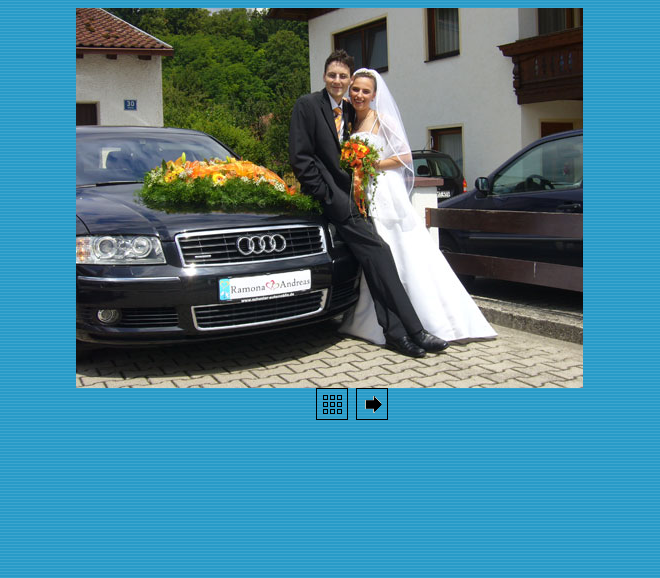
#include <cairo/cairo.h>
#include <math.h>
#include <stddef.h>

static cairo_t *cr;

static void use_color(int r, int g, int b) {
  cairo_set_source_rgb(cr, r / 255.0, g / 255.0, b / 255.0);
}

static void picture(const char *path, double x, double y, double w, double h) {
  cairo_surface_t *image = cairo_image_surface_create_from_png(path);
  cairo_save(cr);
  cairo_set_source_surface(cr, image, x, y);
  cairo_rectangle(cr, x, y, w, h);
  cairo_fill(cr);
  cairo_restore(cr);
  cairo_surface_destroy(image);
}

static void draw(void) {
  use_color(255, 255, 255);
  cairo_paint(cr);
  picture("img_01.png", 0, 0, 660, 578);
  picture("img_02.png", 76, 8, 507, 380);
  picture("img_03.png", 316, 388, 32, 32);
  picture("img_04.png", 356, 388, 32, 32);
}

int main(void) {
  cairo_surface_t *surface = cairo_image_surface_create(CAIRO_FORMAT_RGB24, 660, 578);
  cr = cairo_create(surface);
  cairo_font_options_t *options = cairo_font_options_create();
  cairo_font_options_set_hint_metrics(options, CAIRO_HINT_METRICS_OFF);
  cairo_font_options_set_hint_style(options, CAIRO_HINT_STYLE_NONE);
  cairo_set_font_options(cr, options);
  cairo_set_miter_limit(cr, 4);
  draw();
  cairo_surface_write_to_png(surface, "out.png");
  cairo_font_options_destroy(options);
  cairo_destroy(cr);
  cairo_surface_destroy(surface);
  return 0;
}
